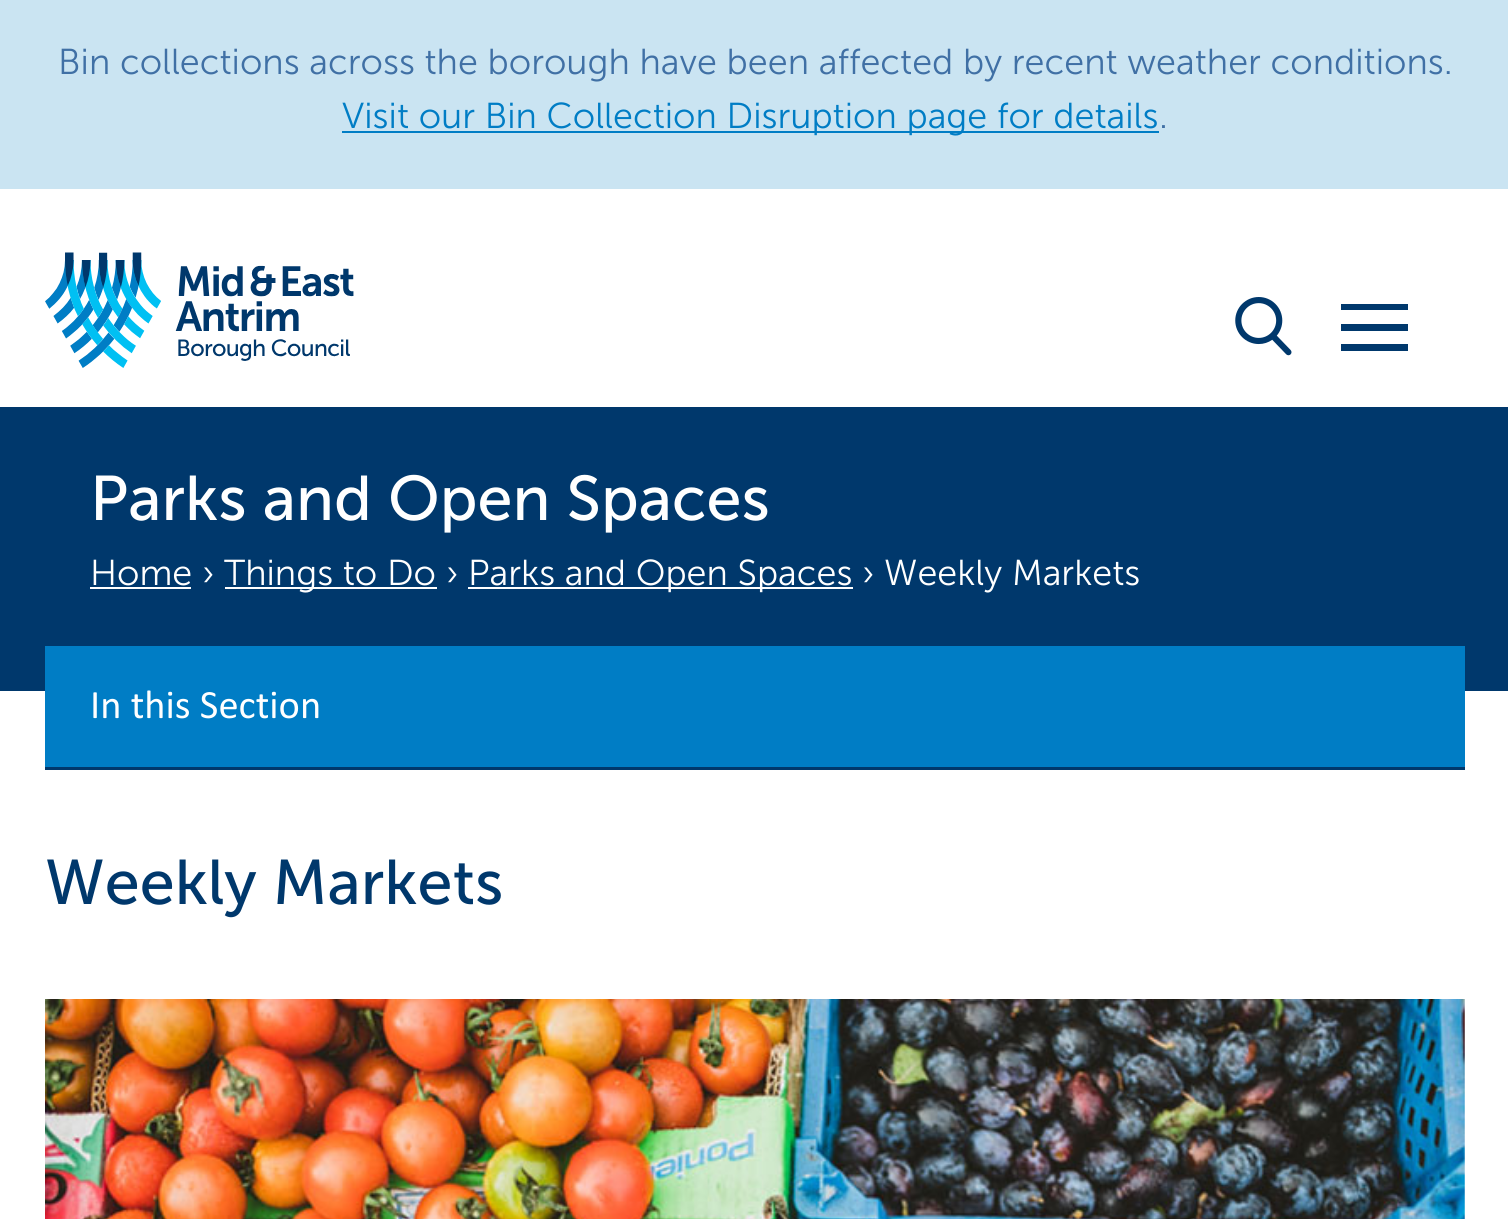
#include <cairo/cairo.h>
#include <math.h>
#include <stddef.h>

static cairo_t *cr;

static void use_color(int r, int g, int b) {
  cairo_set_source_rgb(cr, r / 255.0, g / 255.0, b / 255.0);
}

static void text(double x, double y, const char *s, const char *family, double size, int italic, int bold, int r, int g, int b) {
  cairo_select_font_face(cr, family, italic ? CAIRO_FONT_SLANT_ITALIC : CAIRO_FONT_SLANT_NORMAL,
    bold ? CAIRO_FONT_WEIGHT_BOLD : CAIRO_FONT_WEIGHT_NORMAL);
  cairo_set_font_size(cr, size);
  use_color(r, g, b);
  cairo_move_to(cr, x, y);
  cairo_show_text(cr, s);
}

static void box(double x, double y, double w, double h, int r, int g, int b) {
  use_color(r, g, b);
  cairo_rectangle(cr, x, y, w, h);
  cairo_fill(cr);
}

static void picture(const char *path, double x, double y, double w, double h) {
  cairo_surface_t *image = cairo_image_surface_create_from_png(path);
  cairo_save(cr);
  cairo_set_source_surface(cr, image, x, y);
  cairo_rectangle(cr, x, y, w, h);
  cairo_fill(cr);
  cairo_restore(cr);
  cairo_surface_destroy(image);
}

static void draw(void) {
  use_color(255, 255, 255);
  cairo_paint(cr);
  box(0, 0, 1508, 189, 202, 228, 242);
  box(342, 131, 817, 2, 0, 125, 197);
  picture("img_01.png", 45, 252, 309, 116);
  picture("img_02.png", 1235, 297, 57, 59);
  use_color(0, 56, 108);
  cairo_set_fill_rule(cr, CAIRO_FILL_RULE_EVEN_ODD);
  cairo_new_path(cr);
  cairo_move_to(cr, 1341, 304);
  cairo_line_to(cr, 1408, 304);
  cairo_line_to(cr, 1408, 310);
  cairo_line_to(cr, 1341, 310);
  cairo_close_path(cr);
  cairo_move_to(cr, 1341, 324);
  cairo_line_to(cr, 1408, 324);
  cairo_line_to(cr, 1408, 331);
  cairo_line_to(cr, 1341, 331);
  cairo_close_path(cr);
  cairo_move_to(cr, 1341, 344);
  cairo_line_to(cr, 1408, 344);
  cairo_line_to(cr, 1408, 351);
  cairo_line_to(cr, 1341, 351);
  cairo_close_path(cr);
  cairo_fill(cr);
  box(0, 407, 1508, 284, 0, 56, 108);
  box(90, 587, 101, 2, 255, 255, 255);
  box(225, 587, 212, 2, 255, 255, 255);
  box(468, 587, 385, 2, 255, 255, 255);
  box(45, 767, 1420, 3, 0, 56, 108);
  box(45, 646, 1420, 121, 0, 125, 197);
  picture("img_03.png", 45, 999, 1420, 220);
  text(58, 74, "Bin collections across the borough have been affected by recent weather conditions.", "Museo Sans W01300 Light", 36, 0, 0, 64, 112, 165);
  text(342, 128, "Visit our Bin Collection Disruption page for details", "Museo Sans W01300 Light", 36, 0, 0, 0, 125, 197);
  text(1159, 128, ".", "Museo Sans W01300 Light", 36, 0, 0, 64, 112, 165);
  text(90, 520, "Parks and Open Spaces", "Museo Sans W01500", 63, 0, 0, 255, 255, 255);
  text(90, 585, "Home", "Museo Sans W01300 Light", 36, 0, 0, 255, 255, 255);
  text(202, 585, "›", "Museo Sans W01300 Light", 36, 0, 0, 255, 255, 255);
  text(224, 585, "Things to Do", "Museo Sans W01300 Light", 36, 0, 0, 255, 255, 255);
  text(446, 585, "›", "Museo Sans W01300 Light", 36, 0, 0, 255, 255, 255);
  text(468, 585, "Parks and Open Spaces", "Museo Sans W01300 Light", 36, 0, 0, 255, 255, 255);
  text(862, 585, "› Weekly Markets", "Museo Sans W01300 Light", 36, 0, 0, 255, 255, 255);
  text(90, 718, "In this Section", "Calibri", 40.5, 0, 0, 255, 255, 255);
  text(45, 904, "Weekly Markets", "Museo Sans W01500", 63, 0, 0, 0, 56, 108);
}

int main(void) {
  cairo_surface_t *surface = cairo_image_surface_create(CAIRO_FORMAT_RGB24, 1508, 1219);
  cr = cairo_create(surface);
  cairo_font_options_t *options = cairo_font_options_create();
  cairo_font_options_set_hint_metrics(options, CAIRO_HINT_METRICS_OFF);
  cairo_font_options_set_hint_style(options, CAIRO_HINT_STYLE_NONE);
  cairo_set_font_options(cr, options);
  cairo_set_miter_limit(cr, 4);
  draw();
  cairo_surface_write_to_png(surface, "out.png");
  cairo_font_options_destroy(options);
  cairo_destroy(cr);
  cairo_surface_destroy(surface);
  return 0;
}
